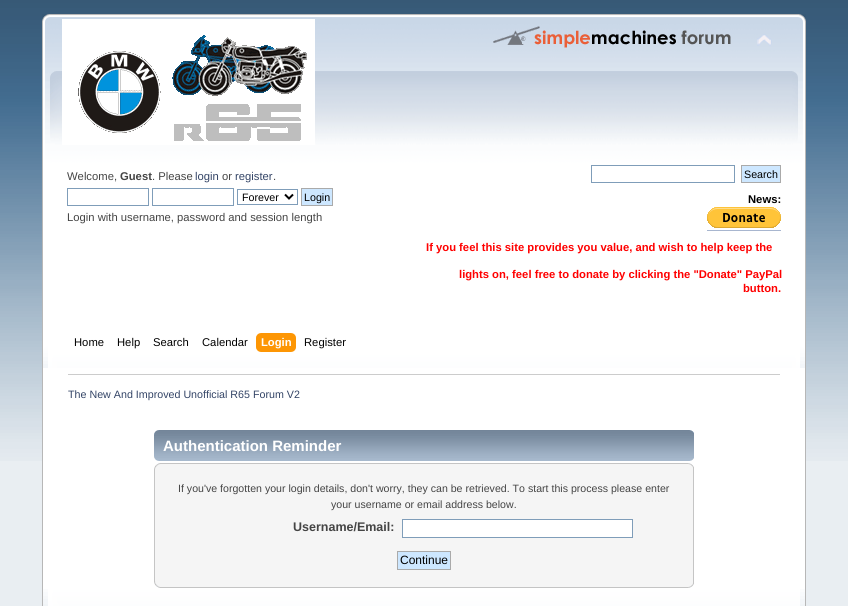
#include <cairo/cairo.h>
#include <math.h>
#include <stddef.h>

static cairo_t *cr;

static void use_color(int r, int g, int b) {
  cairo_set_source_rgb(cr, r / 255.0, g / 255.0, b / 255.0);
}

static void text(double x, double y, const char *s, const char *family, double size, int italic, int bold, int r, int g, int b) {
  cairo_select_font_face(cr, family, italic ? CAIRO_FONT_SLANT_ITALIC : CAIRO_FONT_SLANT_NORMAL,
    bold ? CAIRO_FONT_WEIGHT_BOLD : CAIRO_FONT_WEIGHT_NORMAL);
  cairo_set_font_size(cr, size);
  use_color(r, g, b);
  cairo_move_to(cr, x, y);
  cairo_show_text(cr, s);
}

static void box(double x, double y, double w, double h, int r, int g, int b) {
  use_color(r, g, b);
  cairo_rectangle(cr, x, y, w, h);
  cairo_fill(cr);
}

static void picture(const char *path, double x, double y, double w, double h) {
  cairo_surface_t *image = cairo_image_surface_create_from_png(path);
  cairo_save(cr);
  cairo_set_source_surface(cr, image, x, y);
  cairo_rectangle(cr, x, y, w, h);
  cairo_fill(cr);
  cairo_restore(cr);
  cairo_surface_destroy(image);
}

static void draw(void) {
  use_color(233, 238, 242);
  cairo_paint(cr);
  picture("img_01.png", 0, 0, 848, 461);
  picture("img_02.png", 42, 14, 750, 354);
  picture("img_03.png", 792, 14, 14, 354);
  picture("img_04.png", 62, 19, 253, 126);
  picture("img_05.png", 493, 26, 238, 22);
  picture("img_06.png", 757, 34, 15, 12);
  cairo_rectangle(cr, 67.5, 188.5, 81, 17);
  use_color(127, 157, 185);
  cairo_set_line_width(cr, 1);
  cairo_stroke(cr);
  cairo_rectangle(cr, 152.5, 188.5, 81, 17);
  cairo_stroke(cr);
  cairo_rectangle(cr, 237.5, 189.5, 60, 15);
  cairo_stroke(cr);
  cairo_new_path(cr);
  cairo_move_to(cr, 285, 194.5);
  cairo_line_to(cr, 289, 198.5);
  cairo_line_to(cr, 293, 194.5);
  use_color(0, 0, 0);
  cairo_set_line_width(cr, 2);
  cairo_stroke(cr);
  use_color(205, 231, 255);
  cairo_rectangle(cr, 301.5, 188.5, 31, 17);
  cairo_fill_preserve(cr);
  use_color(170, 170, 170);
  cairo_set_line_width(cr, 1);
  cairo_stroke(cr);
  cairo_rectangle(cr, 591.5, 165.5, 143, 17);
  use_color(127, 157, 185);
  cairo_stroke(cr);
  use_color(205, 231, 255);
  cairo_rectangle(cr, 741.5, 165.5, 39, 17);
  cairo_fill_preserve(cr);
  use_color(170, 170, 170);
  cairo_stroke(cr);
  picture("img_07.png", 707, 207, 74, 21);
  box(707, 230, 74, 1, 168, 182, 207);
  picture("img_08.png", 261, 333, 35, 19);
  picture("img_09.png", 256, 333, 5, 19);
  box(43, 368, 762, 221, 255, 255, 255);
  box(42, 368, 1, 221, 183, 183, 183);
  box(805, 368, 1, 221, 183, 183, 183);
  box(68, 374, 712, 1, 204, 204, 204);
  picture("img_10.png", 154, 430, 535, 31);
  picture("img_11.png", 689, 430, 5, 31);
  picture("img_12.png", 154, 463, 534, 11);
  picture("img_13.png", 688, 463, 6, 11);
  box(155, 474, 538, 103, 245, 245, 245);
  box(693, 474, 1, 103, 197, 197, 197);
  box(154, 474, 1, 103, 197, 197, 197);
  use_color(255, 255, 255);
  cairo_rectangle(cr, 402.5, 519.5, 230, 18);
  cairo_fill_preserve(cr);
  use_color(127, 157, 185);
  cairo_stroke(cr);
  use_color(205, 231, 255);
  cairo_rectangle(cr, 397.5, 551.5, 53, 18);
  cairo_fill_preserve(cr);
  use_color(170, 170, 170);
  cairo_stroke(cr);
  picture("img_14.png", 154, 577, 534, 11);
  picture("img_15.png", 688, 577, 6, 11);
  picture("img_16.png", 42, 589, 758, 17);
  picture("img_17.png", 800, 589, 6, 17);
  text(67, 180, "Welcome,", "Liberation Sans", 11.25, 0, 0, 68, 68, 68);
  text(120, 180, "Guest", "Liberation Sans", 11.25, 0, 1, 68, 68, 68);
  text(152, 180, ". Please", "Liberation Sans", 11.25, 0, 0, 68, 68, 68);
  text(195, 180, "login", "Liberation Sans", 11.25, 0, 0, 51, 68, 102);
  text(222, 180, "or", "Liberation Sans", 11.25, 0, 0, 68, 68, 68);
  text(235, 180, "register", "Liberation Sans", 11.25, 0, 0, 51, 68, 102);
  text(273, 180, ".", "Liberation Sans", 11.25, 0, 0, 68, 68, 68);
  text(242, 201, "Forever", "Liberation Sans", 10.7, 0, 0, 0, 0, 0);
  text(304, 201, "Login", "Liberation Sans", 10.7, 0, 0, 0, 0, 0);
  text(67, 221, "Login with username, password and session length", "Liberation Sans", 11.25, 0, 0, 68, 68, 68);
  text(744, 178, "Search", "Liberation Sans", 10.7, 0, 0, 0, 0, 0);
  text(748, 203, "News:", "Liberation Sans", 11.25, 0, 1, 0, 0, 0);
  text(426, 251, "If you feel this site provides you value, and wish to help keep the", "Liberation Sans", 11.25, 0, 1, 255, 0, 0);
  text(459, 278, "lights on, feel free to donate by clicking the \"Donate\" PayPal", "Liberation Sans", 11.25, 0, 1, 255, 0, 0);
  text(743, 292, "button.", "Liberation Sans", 11.25, 0, 1, 255, 0, 0);
  text(74, 346, "Home", "Liberation Sans", 11.25, 0, 0, 0, 0, 0);
  text(117, 346, "Help", "Liberation Sans", 11.25, 0, 0, 0, 0, 0);
  text(153, 346, "Search", "Liberation Sans", 11.25, 0, 0, 0, 0, 0);
  text(202, 346, "Calendar", "Liberation Sans", 11.25, 0, 0, 0, 0, 0);
  text(261, 346, "Login", "Liberation Sans", 11.25, 0, 1, 255, 255, 255);
  text(304, 346, "Register", "Liberation Sans", 11.25, 0, 0, 0, 0, 0);
  text(68, 398, "The New And Improved Unofficial R65 Forum V2", "Liberation Sans", 10.7, 0, 0, 51, 68, 102);
  text(163, 451, "Authentication Reminder", "Liberation Sans", 15, 0, 1, 255, 255, 255);
  text(178, 492, "If you've forgotten your login details, don't worry, they can be retrieved. To start this process please enter", "Liberation Sans", 10.6, 0, 0, 68, 68, 68);
  text(331, 508, "your username or email address below.", "Liberation Sans", 10.6, 0, 0, 68, 68, 68);
  text(293, 531, "Username/Email:", "Liberation Sans", 12.5, 0, 1, 68, 68, 68);
  text(400, 564, "Continue", "Liberation Sans", 12, 0, 0, 0, 0, 0);
}

int main(void) {
  cairo_surface_t *surface = cairo_image_surface_create(CAIRO_FORMAT_RGB24, 848, 606);
  cr = cairo_create(surface);
  cairo_font_options_t *options = cairo_font_options_create();
  cairo_font_options_set_hint_metrics(options, CAIRO_HINT_METRICS_OFF);
  cairo_font_options_set_hint_style(options, CAIRO_HINT_STYLE_NONE);
  cairo_set_font_options(cr, options);
  cairo_set_miter_limit(cr, 4);
  draw();
  cairo_surface_write_to_png(surface, "out.png");
  cairo_font_options_destroy(options);
  cairo_destroy(cr);
  cairo_surface_destroy(surface);
  return 0;
}
